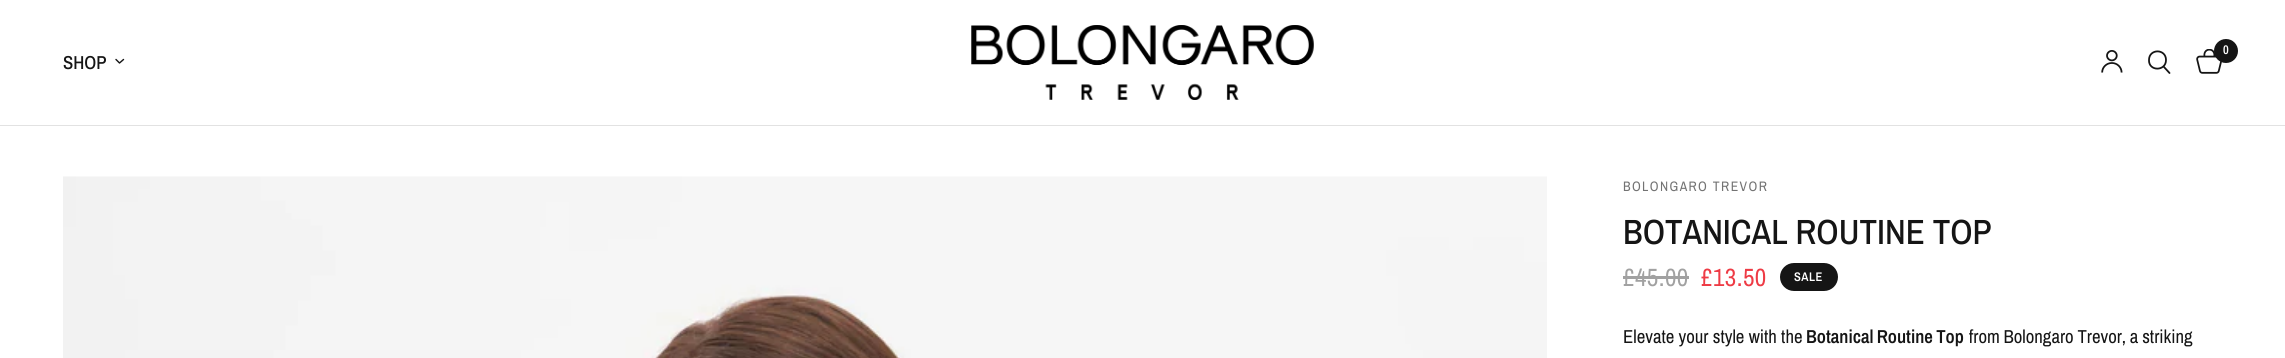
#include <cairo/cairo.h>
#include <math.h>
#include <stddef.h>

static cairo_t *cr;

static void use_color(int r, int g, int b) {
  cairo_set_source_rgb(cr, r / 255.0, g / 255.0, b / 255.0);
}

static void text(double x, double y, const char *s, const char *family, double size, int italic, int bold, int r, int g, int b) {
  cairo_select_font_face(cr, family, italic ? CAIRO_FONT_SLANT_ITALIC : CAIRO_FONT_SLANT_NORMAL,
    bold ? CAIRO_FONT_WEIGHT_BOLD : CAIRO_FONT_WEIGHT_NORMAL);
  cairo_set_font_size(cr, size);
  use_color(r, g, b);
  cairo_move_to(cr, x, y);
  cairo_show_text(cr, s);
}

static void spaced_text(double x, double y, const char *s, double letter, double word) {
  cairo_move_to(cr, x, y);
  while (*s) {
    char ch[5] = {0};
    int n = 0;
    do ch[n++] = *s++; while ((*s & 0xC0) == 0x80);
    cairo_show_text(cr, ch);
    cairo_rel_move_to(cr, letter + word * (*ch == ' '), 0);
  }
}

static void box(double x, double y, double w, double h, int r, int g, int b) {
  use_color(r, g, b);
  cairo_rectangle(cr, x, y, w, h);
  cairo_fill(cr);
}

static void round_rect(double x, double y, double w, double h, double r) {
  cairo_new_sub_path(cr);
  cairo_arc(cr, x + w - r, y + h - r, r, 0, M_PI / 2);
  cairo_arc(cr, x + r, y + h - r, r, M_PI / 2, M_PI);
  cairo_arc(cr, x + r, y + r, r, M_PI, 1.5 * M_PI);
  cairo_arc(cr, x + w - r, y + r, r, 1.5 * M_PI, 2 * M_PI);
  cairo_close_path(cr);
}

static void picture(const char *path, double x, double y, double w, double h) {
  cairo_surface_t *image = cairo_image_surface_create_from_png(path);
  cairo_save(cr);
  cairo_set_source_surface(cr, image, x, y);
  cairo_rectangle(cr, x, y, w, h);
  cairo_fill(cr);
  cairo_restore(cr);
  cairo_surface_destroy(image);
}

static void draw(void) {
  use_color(255, 255, 255);
  cairo_paint(cr);
  box(0, 125, 2285, 1, 226, 226, 226);
  picture("img_01.png", 971, 25, 343, 75);
  picture("img_02.png", 2101, 50, 22, 23);
  cairo_new_path(cr);
  cairo_move_to(cr, 2164, 67);
  cairo_line_to(cr, 2169.5, 73);
  cairo_move_to(cr, 2166, 60);
  cairo_curve_to(cr, 2166, 71.5, 2148.5, 71.5, 2149, 60);
  cairo_curve_to(cr, 2149, 48.5, 2166, 48.5, 2166, 60);
  cairo_close_path(cr);
  use_color(21, 21, 21);
  cairo_set_line_width(cr, 1.8);
  cairo_set_line_cap(cr, CAIRO_LINE_CAP_ROUND);
  cairo_set_line_join(cr, CAIRO_LINE_JOIN_ROUND);
  cairo_stroke(cr);
  picture("img_03.png", 2196, 49, 26, 25);
  cairo_arc(cr, 2226, 51, 12, 0, 2 * M_PI);
  cairo_fill(cr);
  cairo_new_path(cr);
  cairo_move_to(cr, 123.5, 59.5);
  cairo_line_to(cr, 119.5, 63);
  cairo_line_to(cr, 116, 59.5);
  cairo_set_line_width(cr, 1.4);
  cairo_stroke(cr);
  picture("img_04.png", 63, 176, 1484, 182);
  box(1623, 276, 66, 3, 161, 161, 161);
  use_color(21, 21, 21);
  round_rect(1780, 263, 58, 28, 14);
  cairo_fill(cr);
  text(2223, 54, "0", "Archivo Narrow SemiBold", 12.5, 0, 0, 255, 255, 255);
  text(63, 69, "SHOP", "Archivo Narrow Medium", 18.75, 0, 0, 21, 21, 21);
  cairo_select_font_face(cr, "Archivo Narrow", CAIRO_FONT_SLANT_NORMAL, CAIRO_FONT_WEIGHT_NORMAL);
  cairo_set_font_size(cr, 13.75);
  use_color(115, 115, 115);
  spaced_text(1623, 191, "BOLONGARO TREVOR", 1.4, 0);
  text(1623, 244, "BOTANICAL ROUTINE TOP", "Archivo Narrow Medium", 35, 0, 0, 21, 21, 21);
  cairo_select_font_face(cr, "Archivo Narrow", CAIRO_FONT_SLANT_NORMAL, CAIRO_FONT_WEIGHT_NORMAL);
  cairo_set_font_size(cr, 25);
  use_color(161, 161, 161);
  spaced_text(1623, 286, "£45.00", 0.5, 0);
  use_color(238, 59, 69);
  spaced_text(1701, 286, "£13.50", 0.5, 0);
  cairo_select_font_face(cr, "Archivo Narrow SemiBold", CAIRO_FONT_SLANT_NORMAL, CAIRO_FONT_WEIGHT_NORMAL);
  cairo_set_font_size(cr, 12.5);
  use_color(255, 255, 255);
  spaced_text(1794, 281, "SALE", 0.5, 0);
  text(1623, 343, "Elevate your style with the", "Archivo Narrow", 18.75, 0, 0, 21, 21, 21);
  cairo_select_font_face(cr, "Archivo Narrow SemiBold", CAIRO_FONT_SLANT_NORMAL, CAIRO_FONT_WEIGHT_NORMAL);
  spaced_text(1806, 343, "Botanical Routine Top", 0, -1);
  cairo_select_font_face(cr, "Archivo Narrow", CAIRO_FONT_SLANT_NORMAL, CAIRO_FONT_WEIGHT_NORMAL);
  spaced_text(1969, 343, "from Bolongaro Trevor, a striking", 0, -0.5);
}

int main(void) {
  cairo_surface_t *surface = cairo_image_surface_create(CAIRO_FORMAT_RGB24, 2285, 358);
  cr = cairo_create(surface);
  cairo_font_options_t *options = cairo_font_options_create();
  cairo_font_options_set_hint_metrics(options, CAIRO_HINT_METRICS_OFF);
  cairo_font_options_set_hint_style(options, CAIRO_HINT_STYLE_NONE);
  cairo_set_font_options(cr, options);
  cairo_set_miter_limit(cr, 4);
  draw();
  cairo_surface_write_to_png(surface, "out.png");
  cairo_font_options_destroy(options);
  cairo_destroy(cr);
  cairo_surface_destroy(surface);
  return 0;
}
